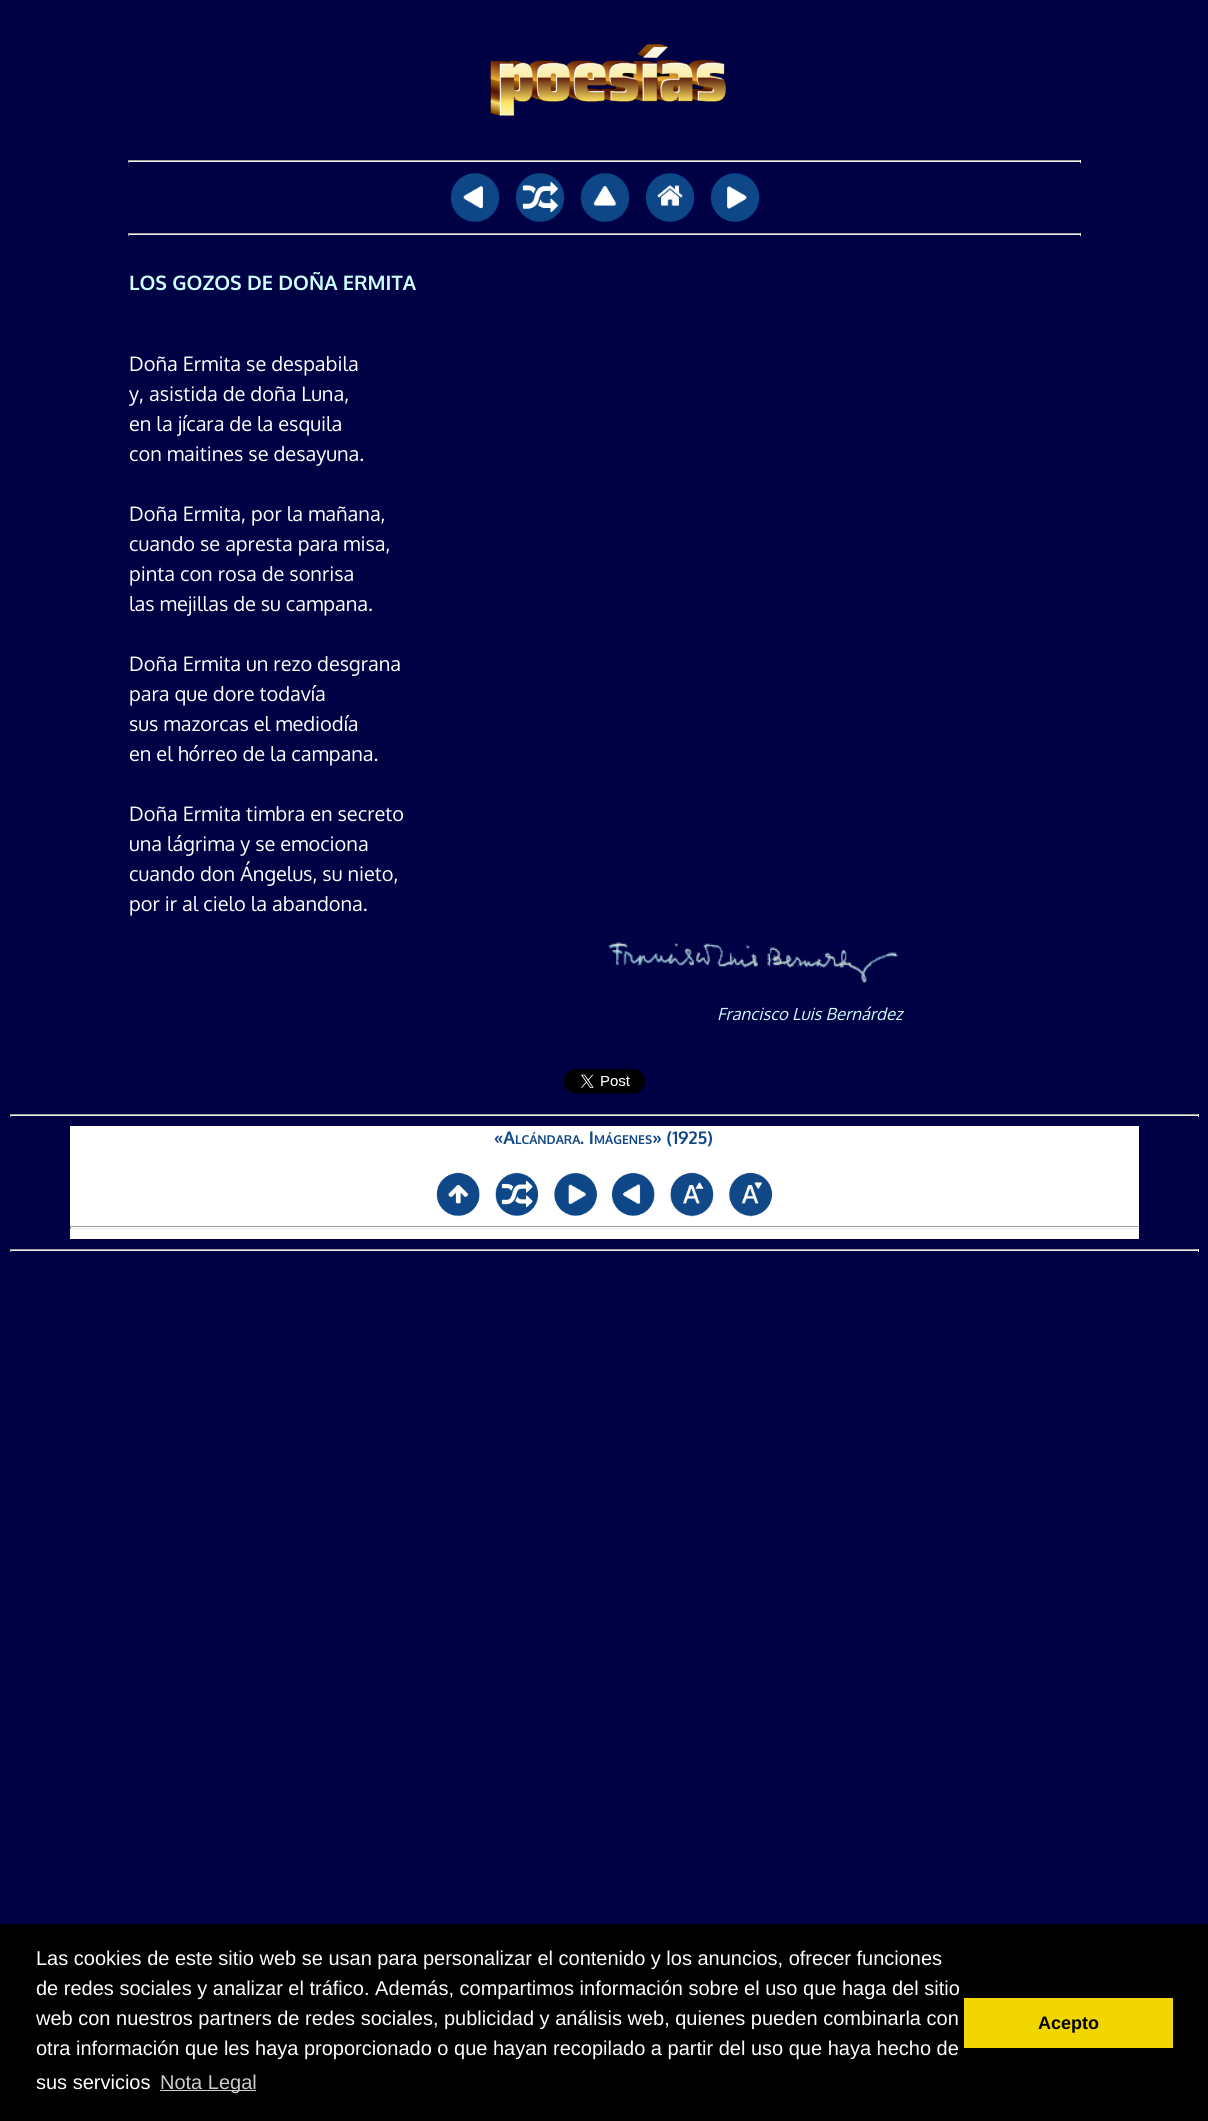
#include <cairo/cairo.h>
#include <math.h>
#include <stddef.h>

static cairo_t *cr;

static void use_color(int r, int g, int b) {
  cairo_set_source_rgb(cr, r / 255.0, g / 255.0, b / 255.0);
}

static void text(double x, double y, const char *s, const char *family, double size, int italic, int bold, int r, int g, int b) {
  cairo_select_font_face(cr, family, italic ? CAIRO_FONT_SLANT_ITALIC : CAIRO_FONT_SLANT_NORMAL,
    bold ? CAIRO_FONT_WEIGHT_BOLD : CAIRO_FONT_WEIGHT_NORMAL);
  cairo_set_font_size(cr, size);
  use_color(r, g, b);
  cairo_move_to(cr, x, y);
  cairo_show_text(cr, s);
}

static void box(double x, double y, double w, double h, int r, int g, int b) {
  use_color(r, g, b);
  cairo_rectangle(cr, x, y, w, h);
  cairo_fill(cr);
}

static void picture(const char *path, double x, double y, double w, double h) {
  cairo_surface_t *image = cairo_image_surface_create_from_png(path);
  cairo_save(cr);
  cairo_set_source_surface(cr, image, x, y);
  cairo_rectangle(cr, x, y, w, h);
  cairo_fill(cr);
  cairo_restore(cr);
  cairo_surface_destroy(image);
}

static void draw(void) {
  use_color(0, 0, 69);
  cairo_paint(cr);
  picture("img_01.png", 490, 44, 236, 72);
  box(128, 160, 953, 1, 159, 159, 159);
  box(1080, 160, 1, 3, 238, 238, 238);
  box(128, 161, 953, 1, 238, 238, 238);
  box(128, 160, 1, 3, 159, 159, 159);
  picture("img_02.png", 450, 172, 50, 50);
  picture("img_03.png", 515, 172, 50, 50);
  picture("img_04.png", 580, 173, 50, 49);
  picture("img_05.png", 645, 173, 50, 49);
  picture("img_06.png", 710, 173, 50, 49);
  box(128, 233, 953, 1, 159, 159, 159);
  box(1080, 233, 1, 3, 238, 238, 238);
  box(128, 234, 953, 1, 238, 238, 238);
  box(128, 233, 1, 3, 159, 159, 159);
  picture("img_07.png", 608, 942, 290, 41);
  picture("img_08.png", 563, 1068, 82, 26);
  box(10, 1114, 1189, 1, 159, 159, 159);
  box(1198, 1114, 1, 3, 238, 238, 238);
  box(10, 1115, 1189, 1, 238, 238, 238);
  box(10, 1114, 1, 3, 159, 159, 159);
  box(70, 1126, 1069, 113, 255, 255, 255);
  picture("img_09.png", 436, 1172, 44, 45);
  picture("img_10.png", 495, 1172, 44, 45);
  picture("img_11.png", 554, 1172, 44, 45);
  picture("img_12.png", 611, 1172, 44, 45);
  picture("img_13.png", 670, 1172, 44, 45);
  picture("img_14.png", 728, 1172, 45, 45);
  box(70, 1226, 1069, 1, 159, 159, 159);
  box(1138, 1226, 1, 3, 238, 238, 238);
  box(70, 1228, 1069, 1, 238, 238, 238);
  box(70, 1226, 1, 3, 159, 159, 159);
  box(10, 1249, 1189, 1, 159, 159, 159);
  box(1198, 1249, 1, 3, 238, 238, 238);
  box(10, 1250, 1189, 1, 238, 238, 238);
  box(10, 1249, 1, 3, 159, 159, 159);
  box(0, 1924, 1208, 197, 0, 0, 0);
  box(160, 2090, 96, 1, 204, 204, 204);
  box(964, 1998, 209, 50, 241, 214, 0);
  text(129, 290, "LOS GOZOS DE DOÑA ERMITA", "Oxygen", 20, 0, 1, 204, 255, 255);
  text(129, 371, "Doña Ermita se despabila", "Oxygen", 20, 0, 0, 255, 255, 255);
  text(129, 401, "y, asistida de doña Luna,", "Oxygen", 20, 0, 0, 255, 255, 255);
  text(129, 431, "en la jícara de la esquila", "Oxygen", 20, 0, 0, 255, 255, 255);
  text(129, 461, "con maitines se desayuna.", "Oxygen", 20, 0, 0, 255, 255, 255);
  text(129, 521, "Doña Ermita, por la mañana,", "Oxygen", 20, 0, 0, 255, 255, 255);
  text(129, 551, "cuando se apresta para misa,", "Oxygen", 20, 0, 0, 255, 255, 255);
  text(129, 581, "pinta con rosa de sonrisa", "Oxygen", 20, 0, 0, 255, 255, 255);
  text(129, 611, "las mejillas de su campana.", "Oxygen", 20, 0, 0, 255, 255, 255);
  text(129, 671, "Doña Ermita un rezo desgrana", "Oxygen", 20, 0, 0, 255, 255, 255);
  text(129, 701, "para que dore todavía", "Oxygen", 20, 0, 0, 255, 255, 255);
  text(129, 731, "sus mazorcas el mediodía", "Oxygen", 20, 0, 0, 255, 255, 255);
  text(129, 761, "en el hórreo de la campana.", "Oxygen", 20, 0, 0, 255, 255, 255);
  text(129, 821, "Doña Ermita timbra en secreto", "Oxygen", 20, 0, 0, 255, 255, 255);
  text(129, 851, "una lágrima y se emociona", "Oxygen", 20, 0, 0, 255, 255, 255);
  text(129, 881, "cuando don Ángelus, su nieto,", "Oxygen", 20, 0, 0, 255, 255, 255);
  text(129, 911, "por ir al cielo la abandona.", "Oxygen", 20, 0, 0, 255, 255, 255);
  text(717, 1020, "Francisco Luis Bernárdez", "Oxygen", 16.75, 1, 0, 204, 255, 255);
  text(494, 1144, "«A", "Oxygen", 17.5, 0, 1, 15, 71, 136);
  text(515, 1144, "LCÁNDARA", "Oxygen", 12.25, 0, 1, 15, 71, 136);
  text(580, 1144, ". I", "Oxygen", 17.5, 0, 1, 15, 71, 136);
  text(594, 1144, "MÁGENES", "Oxygen", 12.25, 0, 1, 15, 71, 136);
  text(652, 1144, "» (1925)", "Oxygen", 17.5, 0, 1, 15, 71, 136);
  text(36, 1965, "Las cookies de este sitio web se usan para personalizar el contenido y los anuncios, ofrecer funciones", "Liberation Sans", 20, 0, 0, 255, 255, 255);
  text(36, 1995, "de redes sociales y analizar el tráfico. Además, compartimos información sobre el uso que haga del sitio", "Liberation Sans", 20, 0, 0, 255, 255, 255);
  text(36, 2025, "web con nuestros partners de redes sociales, publicidad y análisis web, quienes pueden combinarla con", "Liberation Sans", 20, 0, 0, 255, 255, 255);
  text(36, 2055, "otra información que les haya proporcionado o que hayan recopilado a partir del uso que haya hecho de", "Liberation Sans", 20, 0, 0, 255, 255, 255);
  text(36, 2089, "sus servicios", "Liberation Sans", 20, 0, 0, 255, 255, 255);
  text(160, 2089, "Nota Legal", "Liberation Sans", 20, 0, 0, 204, 204, 204);
  text(1038, 2029, "Acepto", "Liberation Sans", 18, 0, 1, 0, 0, 0);
}

int main(void) {
  cairo_surface_t *surface = cairo_image_surface_create(CAIRO_FORMAT_RGB24, 1208, 2121);
  cr = cairo_create(surface);
  cairo_font_options_t *options = cairo_font_options_create();
  cairo_font_options_set_hint_metrics(options, CAIRO_HINT_METRICS_OFF);
  cairo_font_options_set_hint_style(options, CAIRO_HINT_STYLE_NONE);
  cairo_set_font_options(cr, options);
  cairo_set_miter_limit(cr, 4);
  draw();
  cairo_surface_write_to_png(surface, "out.png");
  cairo_font_options_destroy(options);
  cairo_destroy(cr);
  cairo_surface_destroy(surface);
  return 0;
}
